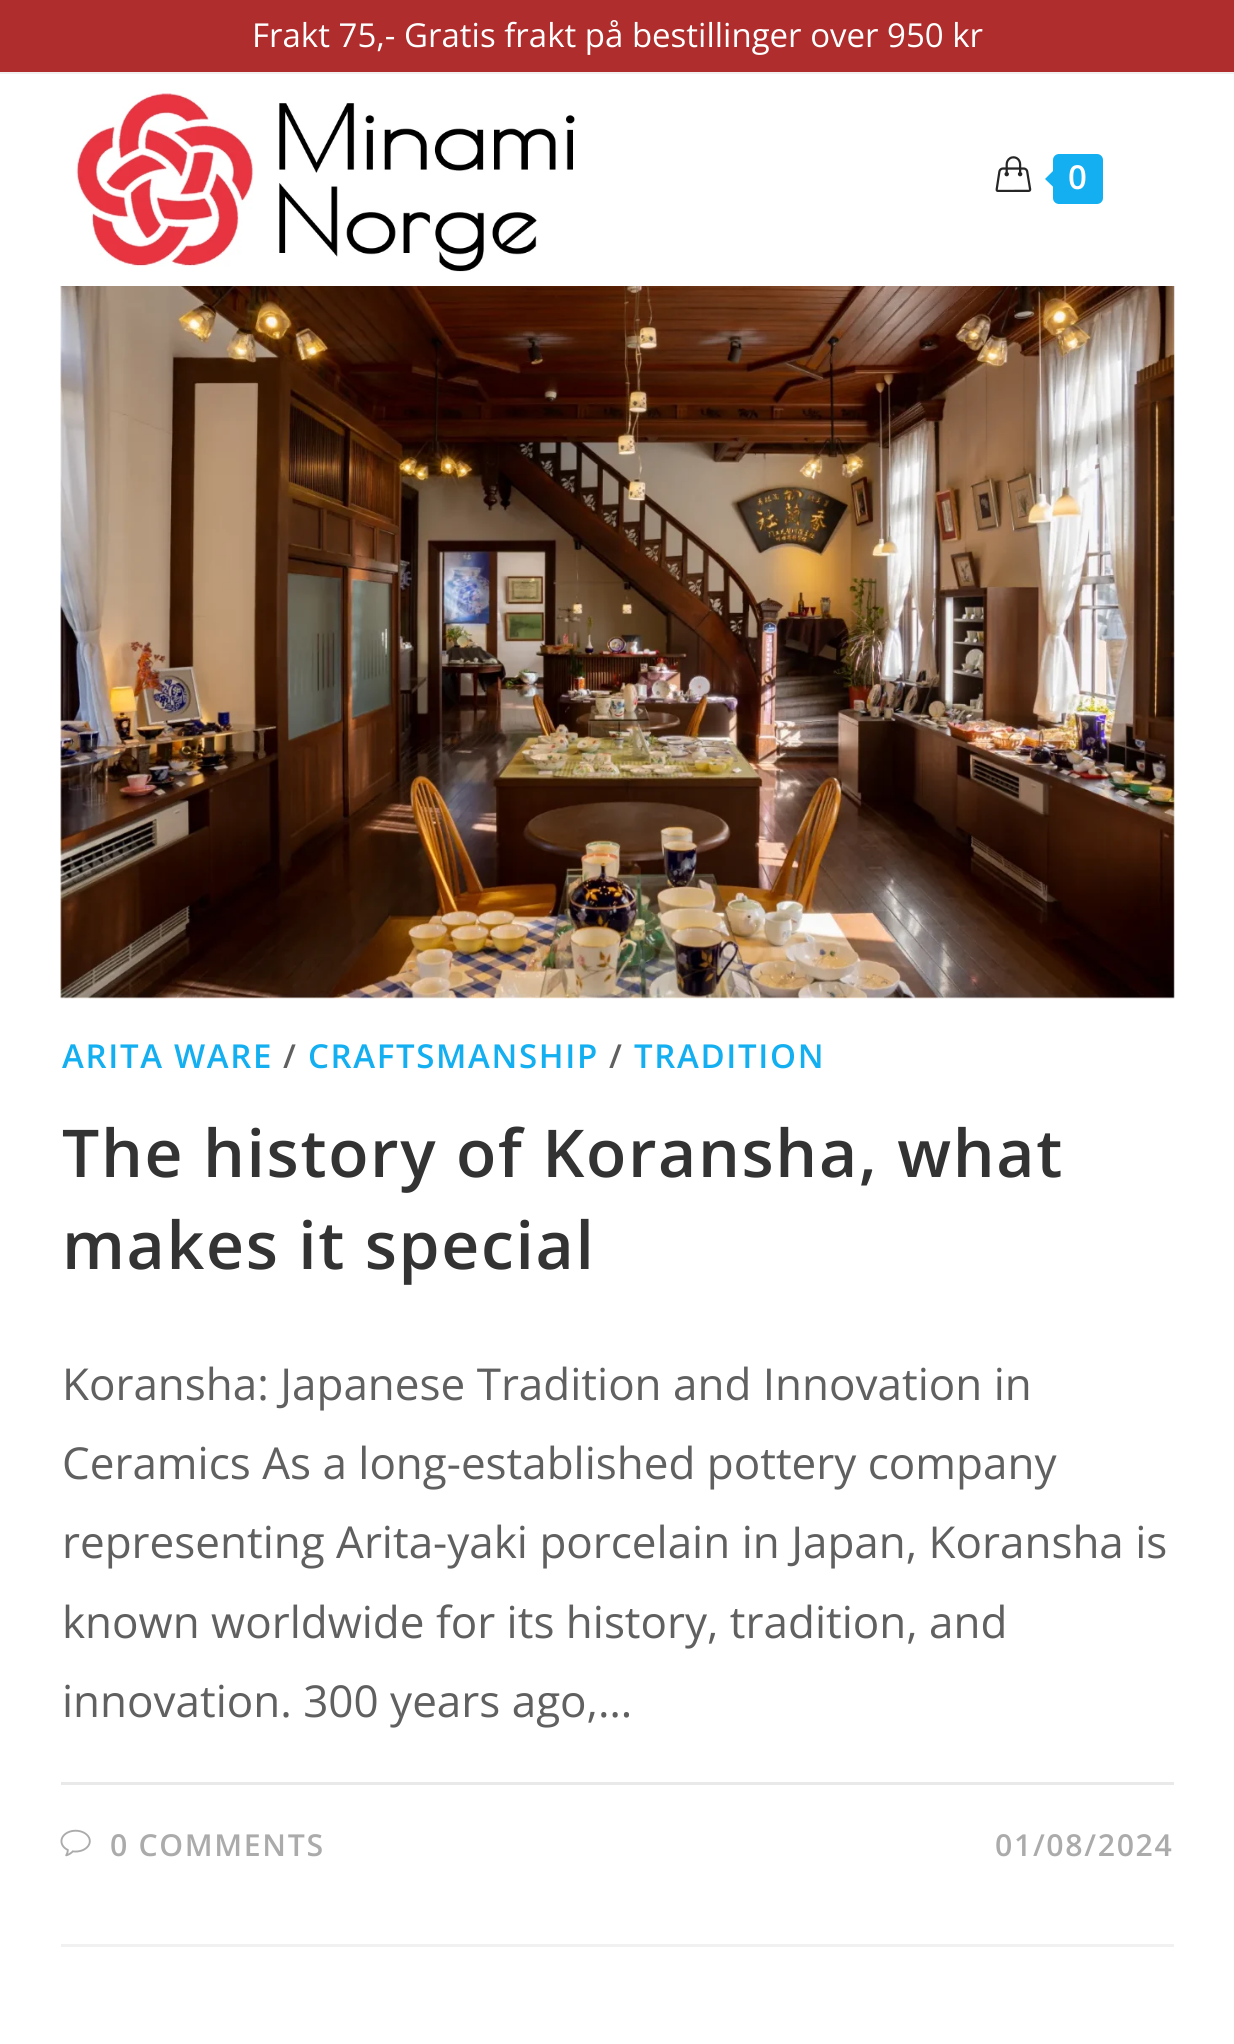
#include <cairo/cairo.h>
#include <math.h>
#include <stddef.h>

static cairo_t *cr;

static void use_color(int r, int g, int b) {
  cairo_set_source_rgb(cr, r / 255.0, g / 255.0, b / 255.0);
}

static void text(double x, double y, const char *s, const char *family, double size, int italic, int bold, int r, int g, int b) {
  cairo_select_font_face(cr, family, italic ? CAIRO_FONT_SLANT_ITALIC : CAIRO_FONT_SLANT_NORMAL,
    bold ? CAIRO_FONT_WEIGHT_BOLD : CAIRO_FONT_WEIGHT_NORMAL);
  cairo_set_font_size(cr, size);
  use_color(r, g, b);
  cairo_move_to(cr, x, y);
  cairo_show_text(cr, s);
}

static void spaced_text(double x, double y, const char *s, double letter, double word) {
  cairo_move_to(cr, x, y);
  while (*s) {
    char ch[5] = {0};
    int n = 0;
    do ch[n++] = *s++; while ((*s & 0xC0) == 0x80);
    cairo_show_text(cr, ch);
    cairo_rel_move_to(cr, letter + word * (*ch == ' '), 0);
  }
}

static void box(double x, double y, double w, double h, int r, int g, int b) {
  use_color(r, g, b);
  cairo_rectangle(cr, x, y, w, h);
  cairo_fill(cr);
}

static void round_rect(double x, double y, double w, double h, double r) {
  cairo_new_sub_path(cr);
  cairo_arc(cr, x + w - r, y + h - r, r, 0, M_PI / 2);
  cairo_arc(cr, x + r, y + h - r, r, M_PI / 2, M_PI);
  cairo_arc(cr, x + r, y + r, r, M_PI, 1.5 * M_PI);
  cairo_arc(cr, x + w - r, y + r, r, 1.5 * M_PI, 2 * M_PI);
  cairo_close_path(cr);
}

static void picture(const char *path, double x, double y, double w, double h) {
  cairo_surface_t *image = cairo_image_surface_create_from_png(path);
  cairo_save(cr);
  cairo_set_source_surface(cr, image, x, y);
  cairo_rectangle(cr, x, y, w, h);
  cairo_fill(cr);
  cairo_restore(cr);
  cairo_surface_destroy(image);
}

static void draw(void) {
  use_color(255, 255, 255);
  cairo_paint(cr);
  box(0, 0, 1234, 72, 175, 45, 45);
  box(0, 72, 1234, 2, 241, 241, 241);
  picture("img_01.png", 76, 93, 499, 179);
  picture("img_02.png", 995, 156, 37, 36);
  use_color(19, 175, 240);
  round_rect(1053, 154, 50, 50, 6);
  cairo_fill(cr);
  cairo_new_path(cr);
  cairo_move_to(cr, 1059, 165);
  cairo_line_to(cr, 1059, 192.5);
  cairo_line_to(cr, 1045, 179);
  cairo_close_path(cr);
  cairo_fill(cr);
  box(61, 1944, 1113, 3, 241, 241, 241);
  picture("img_03.png", 60, 286, 1115, 713);
  box(61, 1782, 1113, 3, 233, 233, 233);
  picture("img_04.png", 60, 1829, 31, 28);
  text(252, 47, "Frakt 75,- Gratis frakt på bestillinger over 950 kr", "Open Sans", 33, 0, 0, 255, 255, 255);
  cairo_select_font_face(cr, "Open Sans SemiBold", CAIRO_FONT_SLANT_NORMAL, CAIRO_FONT_WEIGHT_NORMAL);
  spaced_text(1068, 189, "0", 1.65, 0);
  use_color(19, 175, 240);
  spaced_text(62, 1068, "ARITA WARE", 1.65, 0);
  use_color(96, 96, 96);
  spaced_text(283, 1068, "/", 1.65, 0);
  use_color(19, 175, 240);
  spaced_text(308, 1068, "CRAFTSMANSHIP", 1.65, 0);
  use_color(96, 96, 96);
  spaced_text(609, 1068, "/", 1.65, 0);
  use_color(19, 175, 240);
  spaced_text(634, 1068, "TRADITION", 1.65, 0);
  cairo_set_font_size(cr, 66);
  use_color(51, 51, 51);
  spaced_text(62, 1177, "The history of Koransha, what", 1.65, 0);
  spaced_text(62, 1269, "makes it special", 1.65, 0);
  text(62, 1400, "Koransha: Japanese Tradition and Innovation in", "Open Sans", 44, 0, 0, 96, 96, 96);
  text(62, 1479, "Ceramics As a long-established pottery company", "Open Sans", 44, 0, 0, 96, 96, 96);
  text(62, 1558, "representing Arita-yaki porcelain in Japan, Koransha is", "Open Sans", 44, 0, 0, 96, 96, 96);
  text(62, 1638, "known worldwide for its history, tradition, and", "Open Sans", 44, 0, 0, 96, 96, 96);
  text(62, 1717, "innovation. 300 years ago,…", "Open Sans", 44, 0, 0, 96, 96, 96);
  cairo_select_font_face(cr, "Open Sans SemiBold", CAIRO_FONT_SLANT_NORMAL, CAIRO_FONT_WEIGHT_NORMAL);
  cairo_set_font_size(cr, 30.25);
  use_color(171, 171, 171);
  spaced_text(110, 1856, "0 COMMENTS", 1.65, 0);
  spaced_text(995, 1856, "01/08/2024", 1.65, 0);
}

int main(void) {
  cairo_surface_t *surface = cairo_image_surface_create(CAIRO_FORMAT_RGB24, 1234, 2044);
  cr = cairo_create(surface);
  cairo_font_options_t *options = cairo_font_options_create();
  cairo_font_options_set_hint_metrics(options, CAIRO_HINT_METRICS_OFF);
  cairo_font_options_set_hint_style(options, CAIRO_HINT_STYLE_NONE);
  cairo_set_font_options(cr, options);
  cairo_set_miter_limit(cr, 4);
  draw();
  cairo_surface_write_to_png(surface, "out.png");
  cairo_font_options_destroy(options);
  cairo_destroy(cr);
  cairo_surface_destroy(surface);
  return 0;
}
